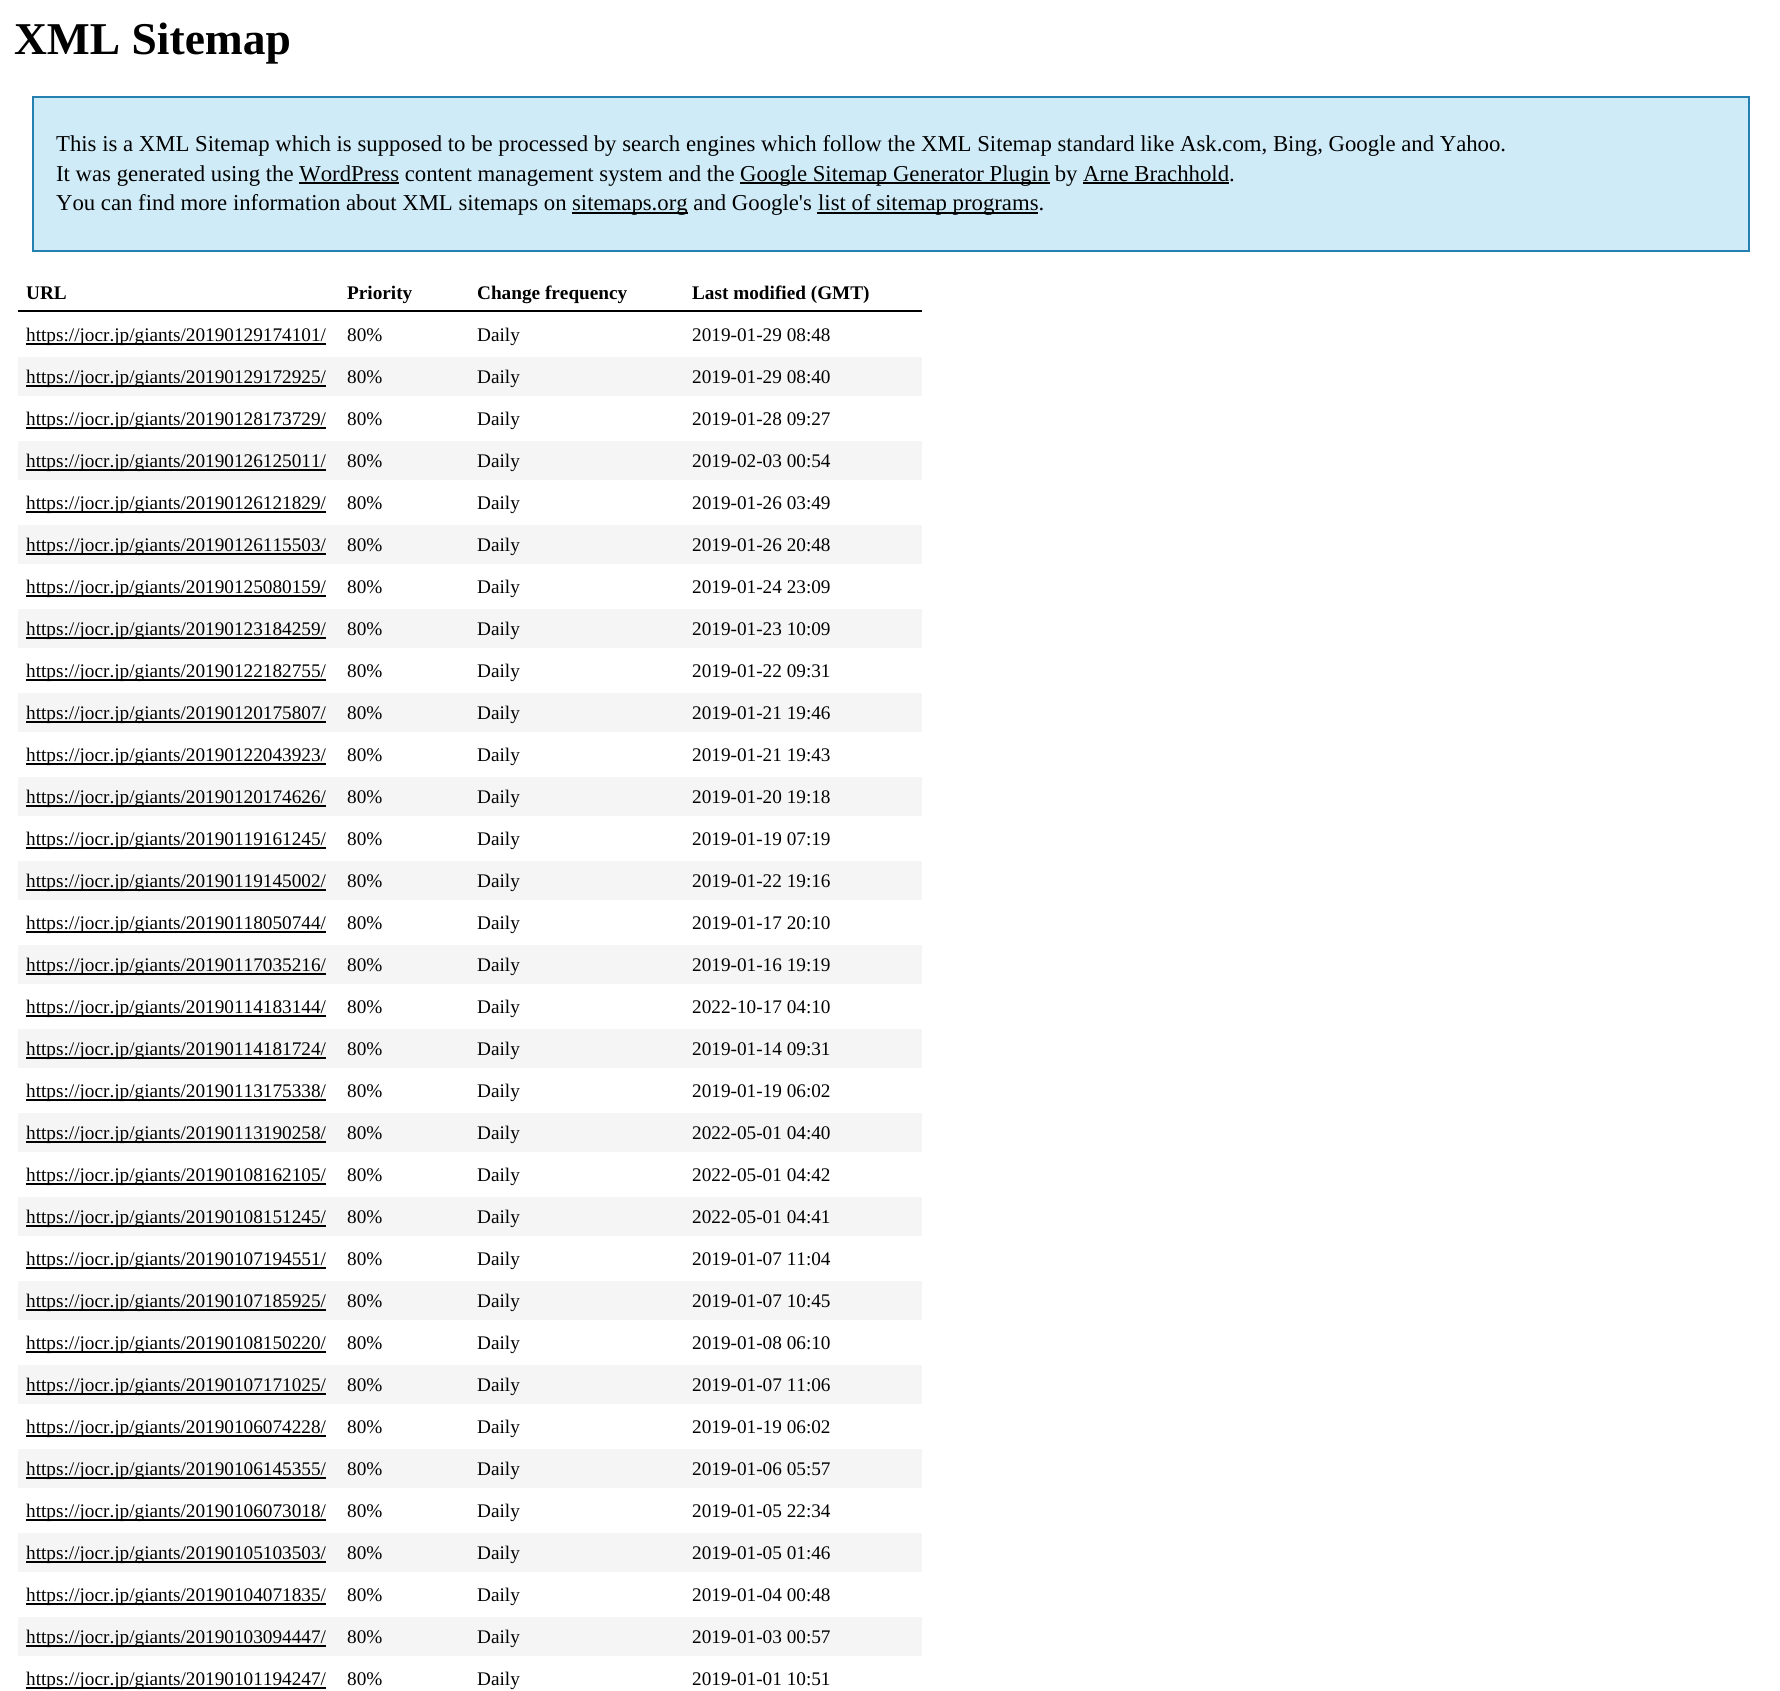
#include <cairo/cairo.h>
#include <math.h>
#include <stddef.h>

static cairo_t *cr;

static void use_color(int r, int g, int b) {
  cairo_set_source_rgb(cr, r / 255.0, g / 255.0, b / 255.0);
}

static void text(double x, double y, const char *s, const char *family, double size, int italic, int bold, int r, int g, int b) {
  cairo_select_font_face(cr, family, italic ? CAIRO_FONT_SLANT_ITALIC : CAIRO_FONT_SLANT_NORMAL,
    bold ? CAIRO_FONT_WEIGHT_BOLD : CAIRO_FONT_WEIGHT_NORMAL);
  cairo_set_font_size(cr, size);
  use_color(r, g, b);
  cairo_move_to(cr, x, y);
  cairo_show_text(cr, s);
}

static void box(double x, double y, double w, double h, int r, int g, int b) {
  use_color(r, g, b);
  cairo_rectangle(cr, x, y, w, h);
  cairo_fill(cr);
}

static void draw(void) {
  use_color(255, 255, 255);
  cairo_paint(cr);
  use_color(207, 235, 247);
  cairo_rectangle(cr, 33, 97, 1716, 154);
  cairo_fill_preserve(cr);
  use_color(37, 128, 178);
  cairo_stroke(cr);
  box(740, 182, 310, 2, 0, 0, 0);
  box(299, 182, 100, 2, 0, 0, 0);
  box(1083, 182, 146, 2, 0, 0, 0);
  box(572, 212, 116, 2, 0, 0, 0);
  box(817, 212, 221, 2, 0, 0, 0);
  box(18, 310, 904, 2, 0, 0, 0);
  box(26, 343, 300, 2, 0, 0, 0);
  box(18, 357, 904, 39, 245, 245, 245);
  box(26, 385, 300, 2, 0, 0, 0);
  box(26, 427, 300, 2, 0, 0, 0);
  box(18, 441, 904, 39, 245, 245, 245);
  box(26, 469, 300, 2, 0, 0, 0);
  box(26, 511, 300, 2, 0, 0, 0);
  box(18, 525, 904, 39, 245, 245, 245);
  box(26, 553, 300, 2, 0, 0, 0);
  box(26, 595, 300, 2, 0, 0, 0);
  box(18, 609, 904, 39, 245, 245, 245);
  box(26, 637, 300, 2, 0, 0, 0);
  box(26, 679, 300, 2, 0, 0, 0);
  box(18, 693, 904, 39, 245, 245, 245);
  box(26, 721, 300, 2, 0, 0, 0);
  box(26, 763, 300, 2, 0, 0, 0);
  box(18, 777, 904, 39, 245, 245, 245);
  box(26, 805, 300, 2, 0, 0, 0);
  box(26, 847, 300, 2, 0, 0, 0);
  box(18, 861, 904, 39, 245, 245, 245);
  box(26, 889, 300, 2, 0, 0, 0);
  box(26, 931, 300, 2, 0, 0, 0);
  box(18, 945, 904, 39, 245, 245, 245);
  box(26, 973, 300, 2, 0, 0, 0);
  box(26, 1015, 300, 2, 0, 0, 0);
  box(18, 1029, 904, 39, 245, 245, 245);
  box(26, 1057, 300, 2, 0, 0, 0);
  box(26, 1099, 300, 2, 0, 0, 0);
  box(18, 1113, 904, 39, 245, 245, 245);
  box(26, 1141, 300, 2, 0, 0, 0);
  box(26, 1183, 300, 2, 0, 0, 0);
  box(18, 1197, 904, 39, 245, 245, 245);
  box(26, 1225, 300, 2, 0, 0, 0);
  box(26, 1267, 300, 2, 0, 0, 0);
  box(18, 1281, 904, 39, 245, 245, 245);
  box(26, 1309, 300, 2, 0, 0, 0);
  box(26, 1351, 300, 2, 0, 0, 0);
  box(18, 1365, 904, 39, 245, 245, 245);
  box(26, 1393, 300, 2, 0, 0, 0);
  box(26, 1435, 300, 2, 0, 0, 0);
  box(18, 1449, 904, 39, 245, 245, 245);
  box(26, 1477, 300, 2, 0, 0, 0);
  box(26, 1519, 300, 2, 0, 0, 0);
  box(18, 1533, 904, 39, 245, 245, 245);
  box(26, 1561, 300, 2, 0, 0, 0);
  box(26, 1603, 300, 2, 0, 0, 0);
  box(18, 1617, 904, 39, 245, 245, 245);
  box(26, 1645, 300, 2, 0, 0, 0);
  box(26, 1687, 300, 2, 0, 0, 0);
  text(14, 54, "XML Sitemap", "Liberation Serif", 45.5, 0, 1, 0, 0, 0);
  text(56, 151, "This is a XML Sitemap which is supposed to be processed by search engines which follow the XML Sitemap standard like Ask.com, Bing, Google and Yahoo.", "Liberation Serif", 22.75, 0, 0, 0, 0, 0);
  text(56, 181, "It was generated using the WordPress content management system and the", "Liberation Serif", 22.75, 0, 0, 0, 0, 0);
  text(740, 181, "Google Sitemap Generator Plugin by Arne Brachhold.", "Liberation Serif", 22.75, 0, 0, 0, 0, 0);
  text(56, 210, "You can find more information about XML sitemaps on", "Liberation Serif", 22.75, 0, 0, 0, 0, 0);
  text(572, 210, "sitemaps.org and Google's", "Liberation Serif", 22.75, 0, 0, 0, 0, 0);
  text(818, 210, "list of sitemap programs.", "Liberation Serif", 22.75, 0, 0, 0, 0, 0);
  text(26, 299, "URL", "Liberation Serif", 19.25, 0, 1, 0, 0, 0);
  text(347, 299, "Priority", "Liberation Serif", 19.25, 0, 1, 0, 0, 0);
  text(477, 299, "Change frequency", "Liberation Serif", 19.25, 0, 1, 0, 0, 0);
  text(692, 299, "Last modified (GMT)", "Liberation Serif", 19.25, 0, 1, 0, 0, 0);
  text(26, 341, "https://jocr.jp/giants/20190129174101/", "Liberation Serif", 19.25, 0, 0, 0, 0, 0);
  text(347, 341, "80%", "Liberation Serif", 19.25, 0, 0, 0, 0, 0);
  text(477, 341, "Daily", "Liberation Serif", 19.25, 0, 0, 0, 0, 0);
  text(692, 341, "2019-01-29 08:48", "Liberation Serif", 19.25, 0, 0, 0, 0, 0);
  text(26, 383, "https://jocr.jp/giants/20190129172925/", "Liberation Serif", 19.25, 0, 0, 0, 0, 0);
  text(347, 383, "80%", "Liberation Serif", 19.25, 0, 0, 0, 0, 0);
  text(477, 383, "Daily", "Liberation Serif", 19.25, 0, 0, 0, 0, 0);
  text(692, 383, "2019-01-29 08:40", "Liberation Serif", 19.25, 0, 0, 0, 0, 0);
  text(26, 425, "https://jocr.jp/giants/20190128173729/", "Liberation Serif", 19.25, 0, 0, 0, 0, 0);
  text(347, 425, "80%", "Liberation Serif", 19.25, 0, 0, 0, 0, 0);
  text(477, 425, "Daily", "Liberation Serif", 19.25, 0, 0, 0, 0, 0);
  text(692, 425, "2019-01-28 09:27", "Liberation Serif", 19.25, 0, 0, 0, 0, 0);
  text(26, 467, "https://jocr.jp/giants/20190126125011/", "Liberation Serif", 19.25, 0, 0, 0, 0, 0);
  text(347, 467, "80%", "Liberation Serif", 19.25, 0, 0, 0, 0, 0);
  text(477, 467, "Daily", "Liberation Serif", 19.25, 0, 0, 0, 0, 0);
  text(692, 467, "2019-02-03 00:54", "Liberation Serif", 19.25, 0, 0, 0, 0, 0);
  text(26, 509, "https://jocr.jp/giants/20190126121829/", "Liberation Serif", 19.25, 0, 0, 0, 0, 0);
  text(347, 509, "80%", "Liberation Serif", 19.25, 0, 0, 0, 0, 0);
  text(477, 509, "Daily", "Liberation Serif", 19.25, 0, 0, 0, 0, 0);
  text(692, 509, "2019-01-26 03:49", "Liberation Serif", 19.25, 0, 0, 0, 0, 0);
  text(26, 551, "https://jocr.jp/giants/20190126115503/", "Liberation Serif", 19.25, 0, 0, 0, 0, 0);
  text(347, 551, "80%", "Liberation Serif", 19.25, 0, 0, 0, 0, 0);
  text(477, 551, "Daily", "Liberation Serif", 19.25, 0, 0, 0, 0, 0);
  text(692, 551, "2019-01-26 20:48", "Liberation Serif", 19.25, 0, 0, 0, 0, 0);
  text(26, 593, "https://jocr.jp/giants/20190125080159/", "Liberation Serif", 19.25, 0, 0, 0, 0, 0);
  text(347, 593, "80%", "Liberation Serif", 19.25, 0, 0, 0, 0, 0);
  text(477, 593, "Daily", "Liberation Serif", 19.25, 0, 0, 0, 0, 0);
  text(692, 593, "2019-01-24 23:09", "Liberation Serif", 19.25, 0, 0, 0, 0, 0);
  text(26, 635, "https://jocr.jp/giants/20190123184259/", "Liberation Serif", 19.25, 0, 0, 0, 0, 0);
  text(347, 635, "80%", "Liberation Serif", 19.25, 0, 0, 0, 0, 0);
  text(477, 635, "Daily", "Liberation Serif", 19.25, 0, 0, 0, 0, 0);
  text(692, 635, "2019-01-23 10:09", "Liberation Serif", 19.25, 0, 0, 0, 0, 0);
  text(26, 677, "https://jocr.jp/giants/20190122182755/", "Liberation Serif", 19.25, 0, 0, 0, 0, 0);
  text(347, 677, "80%", "Liberation Serif", 19.25, 0, 0, 0, 0, 0);
  text(477, 677, "Daily", "Liberation Serif", 19.25, 0, 0, 0, 0, 0);
  text(692, 677, "2019-01-22 09:31", "Liberation Serif", 19.25, 0, 0, 0, 0, 0);
  text(26, 719, "https://jocr.jp/giants/20190120175807/", "Liberation Serif", 19.25, 0, 0, 0, 0, 0);
  text(347, 719, "80%", "Liberation Serif", 19.25, 0, 0, 0, 0, 0);
  text(477, 719, "Daily", "Liberation Serif", 19.25, 0, 0, 0, 0, 0);
  text(692, 719, "2019-01-21 19:46", "Liberation Serif", 19.25, 0, 0, 0, 0, 0);
  text(26, 761, "https://jocr.jp/giants/20190122043923/", "Liberation Serif", 19.25, 0, 0, 0, 0, 0);
  text(347, 761, "80%", "Liberation Serif", 19.25, 0, 0, 0, 0, 0);
  text(477, 761, "Daily", "Liberation Serif", 19.25, 0, 0, 0, 0, 0);
  text(692, 761, "2019-01-21 19:43", "Liberation Serif", 19.25, 0, 0, 0, 0, 0);
  text(26, 803, "https://jocr.jp/giants/20190120174626/", "Liberation Serif", 19.25, 0, 0, 0, 0, 0);
  text(347, 803, "80%", "Liberation Serif", 19.25, 0, 0, 0, 0, 0);
  text(477, 803, "Daily", "Liberation Serif", 19.25, 0, 0, 0, 0, 0);
  text(692, 803, "2019-01-20 19:18", "Liberation Serif", 19.25, 0, 0, 0, 0, 0);
  text(26, 845, "https://jocr.jp/giants/20190119161245/", "Liberation Serif", 19.25, 0, 0, 0, 0, 0);
  text(347, 845, "80%", "Liberation Serif", 19.25, 0, 0, 0, 0, 0);
  text(477, 845, "Daily", "Liberation Serif", 19.25, 0, 0, 0, 0, 0);
  text(692, 845, "2019-01-19 07:19", "Liberation Serif", 19.25, 0, 0, 0, 0, 0);
  text(26, 887, "https://jocr.jp/giants/20190119145002/", "Liberation Serif", 19.25, 0, 0, 0, 0, 0);
  text(347, 887, "80%", "Liberation Serif", 19.25, 0, 0, 0, 0, 0);
  text(477, 887, "Daily", "Liberation Serif", 19.25, 0, 0, 0, 0, 0);
  text(692, 887, "2019-01-22 19:16", "Liberation Serif", 19.25, 0, 0, 0, 0, 0);
  text(26, 929, "https://jocr.jp/giants/20190118050744/", "Liberation Serif", 19.25, 0, 0, 0, 0, 0);
  text(347, 929, "80%", "Liberation Serif", 19.25, 0, 0, 0, 0, 0);
  text(477, 929, "Daily", "Liberation Serif", 19.25, 0, 0, 0, 0, 0);
  text(692, 929, "2019-01-17 20:10", "Liberation Serif", 19.25, 0, 0, 0, 0, 0);
  text(26, 971, "https://jocr.jp/giants/20190117035216/", "Liberation Serif", 19.25, 0, 0, 0, 0, 0);
  text(347, 971, "80%", "Liberation Serif", 19.25, 0, 0, 0, 0, 0);
  text(477, 971, "Daily", "Liberation Serif", 19.25, 0, 0, 0, 0, 0);
  text(692, 971, "2019-01-16 19:19", "Liberation Serif", 19.25, 0, 0, 0, 0, 0);
  text(26, 1013, "https://jocr.jp/giants/20190114183144/", "Liberation Serif", 19.25, 0, 0, 0, 0, 0);
  text(347, 1013, "80%", "Liberation Serif", 19.25, 0, 0, 0, 0, 0);
  text(477, 1013, "Daily", "Liberation Serif", 19.25, 0, 0, 0, 0, 0);
  text(692, 1013, "2022-10-17 04:10", "Liberation Serif", 19.25, 0, 0, 0, 0, 0);
  text(26, 1055, "https://jocr.jp/giants/20190114181724/", "Liberation Serif", 19.25, 0, 0, 0, 0, 0);
  text(347, 1055, "80%", "Liberation Serif", 19.25, 0, 0, 0, 0, 0);
  text(477, 1055, "Daily", "Liberation Serif", 19.25, 0, 0, 0, 0, 0);
  text(692, 1055, "2019-01-14 09:31", "Liberation Serif", 19.25, 0, 0, 0, 0, 0);
  text(26, 1097, "https://jocr.jp/giants/20190113175338/", "Liberation Serif", 19.25, 0, 0, 0, 0, 0);
  text(347, 1097, "80%", "Liberation Serif", 19.25, 0, 0, 0, 0, 0);
  text(477, 1097, "Daily", "Liberation Serif", 19.25, 0, 0, 0, 0, 0);
  text(692, 1097, "2019-01-19 06:02", "Liberation Serif", 19.25, 0, 0, 0, 0, 0);
  text(26, 1139, "https://jocr.jp/giants/20190113190258/", "Liberation Serif", 19.25, 0, 0, 0, 0, 0);
  text(347, 1139, "80%", "Liberation Serif", 19.25, 0, 0, 0, 0, 0);
  text(477, 1139, "Daily", "Liberation Serif", 19.25, 0, 0, 0, 0, 0);
  text(692, 1139, "2022-05-01 04:40", "Liberation Serif", 19.25, 0, 0, 0, 0, 0);
  text(26, 1181, "https://jocr.jp/giants/20190108162105/", "Liberation Serif", 19.25, 0, 0, 0, 0, 0);
  text(347, 1181, "80%", "Liberation Serif", 19.25, 0, 0, 0, 0, 0);
  text(477, 1181, "Daily", "Liberation Serif", 19.25, 0, 0, 0, 0, 0);
  text(692, 1181, "2022-05-01 04:42", "Liberation Serif", 19.25, 0, 0, 0, 0, 0);
  text(26, 1223, "https://jocr.jp/giants/20190108151245/", "Liberation Serif", 19.25, 0, 0, 0, 0, 0);
  text(347, 1223, "80%", "Liberation Serif", 19.25, 0, 0, 0, 0, 0);
  text(477, 1223, "Daily", "Liberation Serif", 19.25, 0, 0, 0, 0, 0);
  text(692, 1223, "2022-05-01 04:41", "Liberation Serif", 19.25, 0, 0, 0, 0, 0);
  text(26, 1265, "https://jocr.jp/giants/20190107194551/", "Liberation Serif", 19.25, 0, 0, 0, 0, 0);
  text(347, 1265, "80%", "Liberation Serif", 19.25, 0, 0, 0, 0, 0);
  text(477, 1265, "Daily", "Liberation Serif", 19.25, 0, 0, 0, 0, 0);
  text(692, 1265, "2019-01-07 11:04", "Liberation Serif", 19.25, 0, 0, 0, 0, 0);
  text(26, 1307, "https://jocr.jp/giants/20190107185925/", "Liberation Serif", 19.25, 0, 0, 0, 0, 0);
  text(347, 1307, "80%", "Liberation Serif", 19.25, 0, 0, 0, 0, 0);
  text(477, 1307, "Daily", "Liberation Serif", 19.25, 0, 0, 0, 0, 0);
  text(692, 1307, "2019-01-07 10:45", "Liberation Serif", 19.25, 0, 0, 0, 0, 0);
  text(26, 1349, "https://jocr.jp/giants/20190108150220/", "Liberation Serif", 19.25, 0, 0, 0, 0, 0);
  text(347, 1349, "80%", "Liberation Serif", 19.25, 0, 0, 0, 0, 0);
  text(477, 1349, "Daily", "Liberation Serif", 19.25, 0, 0, 0, 0, 0);
  text(692, 1349, "2019-01-08 06:10", "Liberation Serif", 19.25, 0, 0, 0, 0, 0);
  text(26, 1391, "https://jocr.jp/giants/20190107171025/", "Liberation Serif", 19.25, 0, 0, 0, 0, 0);
  text(347, 1391, "80%", "Liberation Serif", 19.25, 0, 0, 0, 0, 0);
  text(477, 1391, "Daily", "Liberation Serif", 19.25, 0, 0, 0, 0, 0);
  text(692, 1391, "2019-01-07 11:06", "Liberation Serif", 19.25, 0, 0, 0, 0, 0);
  text(26, 1433, "https://jocr.jp/giants/20190106074228/", "Liberation Serif", 19.25, 0, 0, 0, 0, 0);
  text(347, 1433, "80%", "Liberation Serif", 19.25, 0, 0, 0, 0, 0);
  text(477, 1433, "Daily", "Liberation Serif", 19.25, 0, 0, 0, 0, 0);
  text(692, 1433, "2019-01-19 06:02", "Liberation Serif", 19.25, 0, 0, 0, 0, 0);
  text(26, 1475, "https://jocr.jp/giants/20190106145355/", "Liberation Serif", 19.25, 0, 0, 0, 0, 0);
  text(347, 1475, "80%", "Liberation Serif", 19.25, 0, 0, 0, 0, 0);
  text(477, 1475, "Daily", "Liberation Serif", 19.25, 0, 0, 0, 0, 0);
  text(692, 1475, "2019-01-06 05:57", "Liberation Serif", 19.25, 0, 0, 0, 0, 0);
  text(26, 1517, "https://jocr.jp/giants/20190106073018/", "Liberation Serif", 19.25, 0, 0, 0, 0, 0);
  text(347, 1517, "80%", "Liberation Serif", 19.25, 0, 0, 0, 0, 0);
  text(477, 1517, "Daily", "Liberation Serif", 19.25, 0, 0, 0, 0, 0);
  text(692, 1517, "2019-01-05 22:34", "Liberation Serif", 19.25, 0, 0, 0, 0, 0);
  text(26, 1559, "https://jocr.jp/giants/20190105103503/", "Liberation Serif", 19.25, 0, 0, 0, 0, 0);
  text(347, 1559, "80%", "Liberation Serif", 19.25, 0, 0, 0, 0, 0);
  text(477, 1559, "Daily", "Liberation Serif", 19.25, 0, 0, 0, 0, 0);
  text(692, 1559, "2019-01-05 01:46", "Liberation Serif", 19.25, 0, 0, 0, 0, 0);
  text(26, 1601, "https://jocr.jp/giants/20190104071835/", "Liberation Serif", 19.25, 0, 0, 0, 0, 0);
  text(347, 1601, "80%", "Liberation Serif", 19.25, 0, 0, 0, 0, 0);
  text(477, 1601, "Daily", "Liberation Serif", 19.25, 0, 0, 0, 0, 0);
  text(692, 1601, "2019-01-04 00:48", "Liberation Serif", 19.25, 0, 0, 0, 0, 0);
  text(26, 1643, "https://jocr.jp/giants/20190103094447/", "Liberation Serif", 19.25, 0, 0, 0, 0, 0);
  text(347, 1643, "80%", "Liberation Serif", 19.25, 0, 0, 0, 0, 0);
  text(477, 1643, "Daily", "Liberation Serif", 19.25, 0, 0, 0, 0, 0);
  text(692, 1643, "2019-01-03 00:57", "Liberation Serif", 19.25, 0, 0, 0, 0, 0);
  text(26, 1685, "https://jocr.jp/giants/20190101194247/", "Liberation Serif", 19.25, 0, 0, 0, 0, 0);
  text(347, 1685, "80%", "Liberation Serif", 19.25, 0, 0, 0, 0, 0);
  text(477, 1685, "Daily", "Liberation Serif", 19.25, 0, 0, 0, 0, 0);
  text(692, 1685, "2019-01-01 10:51", "Liberation Serif", 19.25, 0, 0, 0, 0, 0);
}

int main(void) {
  cairo_surface_t *surface = cairo_image_surface_create(CAIRO_FORMAT_RGB24, 1780, 1691);
  cr = cairo_create(surface);
  cairo_font_options_t *options = cairo_font_options_create();
  cairo_font_options_set_hint_metrics(options, CAIRO_HINT_METRICS_OFF);
  cairo_font_options_set_hint_style(options, CAIRO_HINT_STYLE_NONE);
  cairo_set_font_options(cr, options);
  cairo_set_miter_limit(cr, 4);
  draw();
  cairo_surface_write_to_png(surface, "out.png");
  cairo_font_options_destroy(options);
  cairo_destroy(cr);
  cairo_surface_destroy(surface);
  return 0;
}
